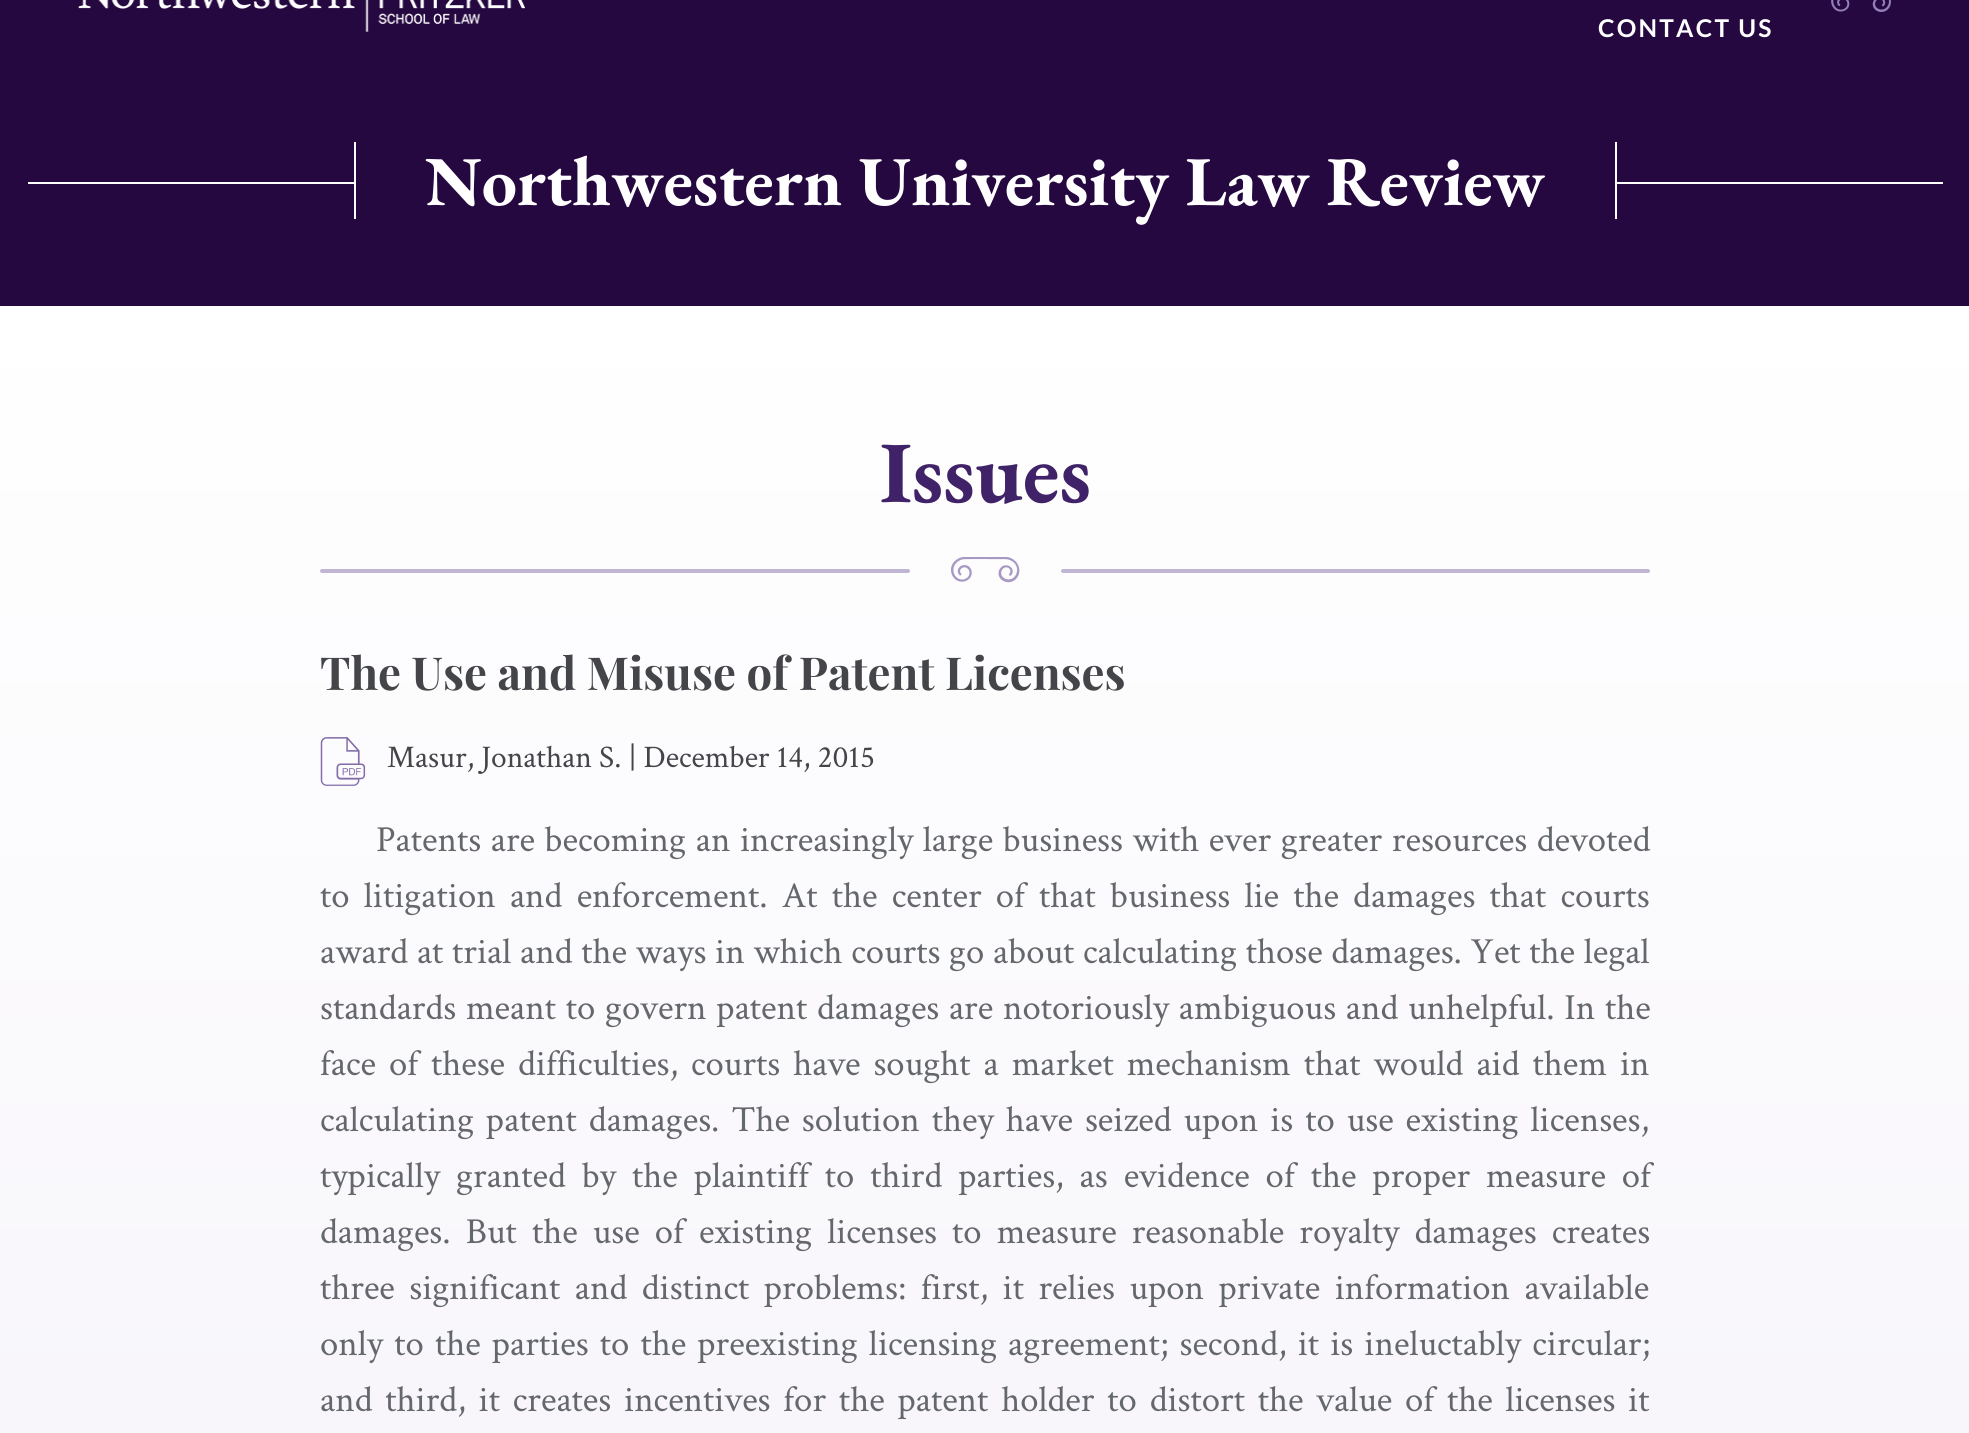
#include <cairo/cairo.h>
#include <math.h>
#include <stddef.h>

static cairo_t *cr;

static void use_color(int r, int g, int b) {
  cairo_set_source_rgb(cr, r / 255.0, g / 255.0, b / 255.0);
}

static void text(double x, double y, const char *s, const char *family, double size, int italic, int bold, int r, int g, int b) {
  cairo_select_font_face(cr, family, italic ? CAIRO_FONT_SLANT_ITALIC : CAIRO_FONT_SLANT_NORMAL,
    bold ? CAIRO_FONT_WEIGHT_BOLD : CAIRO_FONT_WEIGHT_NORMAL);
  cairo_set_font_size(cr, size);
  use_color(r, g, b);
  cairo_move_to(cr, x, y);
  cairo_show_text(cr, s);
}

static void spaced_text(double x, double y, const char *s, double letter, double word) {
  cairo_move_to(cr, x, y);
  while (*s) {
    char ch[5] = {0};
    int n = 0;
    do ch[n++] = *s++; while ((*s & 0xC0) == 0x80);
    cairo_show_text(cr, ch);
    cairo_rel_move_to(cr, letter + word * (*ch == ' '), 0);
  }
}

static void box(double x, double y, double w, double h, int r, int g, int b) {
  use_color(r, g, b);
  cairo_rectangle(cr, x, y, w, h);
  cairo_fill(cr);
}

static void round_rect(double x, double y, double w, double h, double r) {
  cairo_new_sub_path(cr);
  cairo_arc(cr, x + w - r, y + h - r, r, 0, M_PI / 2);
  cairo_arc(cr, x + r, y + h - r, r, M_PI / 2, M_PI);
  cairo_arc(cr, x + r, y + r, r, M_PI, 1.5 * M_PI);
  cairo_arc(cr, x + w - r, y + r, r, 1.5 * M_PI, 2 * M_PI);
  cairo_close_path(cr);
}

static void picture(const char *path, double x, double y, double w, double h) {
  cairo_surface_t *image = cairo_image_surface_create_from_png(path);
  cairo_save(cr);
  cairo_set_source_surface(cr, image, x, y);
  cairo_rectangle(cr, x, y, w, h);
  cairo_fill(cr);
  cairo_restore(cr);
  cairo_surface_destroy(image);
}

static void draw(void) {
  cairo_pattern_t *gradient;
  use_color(38, 8, 65);
  cairo_paint(cr);
  picture("img_01.png", 78, 0, 447, 32);
  picture("img_02.png", 1831, 0, 60, 12);
  box(28, 182, 1915, 2, 255, 255, 255);
  box(356, 182, 1259, 2, 38, 8, 65);
  box(1615, 142, 2, 77, 255, 255, 255);
  box(354, 142, 2, 77, 255, 255, 255);
  gradient = cairo_pattern_create_linear(985, 306, 985, 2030);
  cairo_pattern_add_color_stop_rgba(gradient, 0, 1, 1, 1, 1);
  cairo_pattern_add_color_stop_rgba(gradient, 1, 0.957, 0.945, 0.973, 1);
  cairo_set_source(cr, gradient);
  cairo_pattern_destroy(gradient);
  cairo_rectangle(cr, 0, 306, 1969, 1127);
  cairo_fill(cr);
  picture("img_03.png", 951, 557, 69, 26);
  use_color(192, 182, 212);
  round_rect(320, 569, 590, 4, 2);
  cairo_fill(cr);
  round_rect(1061, 569, 589, 4, 2);
  cairo_fill(cr);
  picture("img_04.png", 320, 737, 46, 49);
  cairo_select_font_face(cr, "Lato", CAIRO_FONT_SLANT_NORMAL, CAIRO_FONT_WEIGHT_BOLD);
  cairo_set_font_size(cr, 24.5);
  use_color(255, 255, 255);
  spaced_text(1598, 37, "CONTACT US", 2.25, 0);
  text(425, 205, "Northwestern University Law Review", "EB Garamond", 70, 0, 1, 255, 255, 255);
  text(880, 502, "Issues", "EB Garamond", 87.5, 0, 1, 64, 34, 104);
  text(320, 690, "The Use and Misuse of Patent Licenses", "Playfair Display", 45.5, 0, 1, 67, 69, 73);
  text(387, 767, "Masur, Jonathan S. | December 14, 2015", "Crimson Text", 31.5, 0, 0, 67, 69, 73);
  cairo_set_font_size(cr, 36.75);
  use_color(100, 103, 107);
  spaced_text(376, 851, "Patents are becoming an increasingly large business with ever greater resources devoted", 0, 1.4);
  spaced_text(320, 907, "to litigation and enforcement. At the center of that business lie the damages that courts", 0, 6);
  spaced_text(320, 963, "award at trial and the ways in which courts go about calculating those damages. Yet the legal", 0, 0.5);
  spaced_text(320, 1019, "standards meant to govern patent damages are notoriously ambiguous and unhelpful. In the", 0, 1.5);
  spaced_text(320, 1075, "face of these difficulties, courts have sought a market mechanism that would aid them in", 0, 4.75);
  spaced_text(320, 1131, "calculating patent damages. The solution they have seized upon is to use existing licenses,", 0, 3.75);
  spaced_text(320, 1187, "typically granted by the plaintiff to third parties, as evidence of the proper measure of", 0, 7.75);
  spaced_text(320, 1243, "damages. But the use of existing licenses to measure reasonable royalty damages creates", 0, 6.9);
  spaced_text(320, 1299, "three significant and distinct problems: first, it relies upon private information available", 0, 6.25);
  spaced_text(320, 1355, "only to the parties to the preexisting licensing agreement; second, it is ineluctably circular;", 0, 2.9);
  spaced_text(320, 1411, "and third, it creates incentives for the patent holder to distort the value of the licenses it", 0, 4.6);
}

int main(void) {
  cairo_surface_t *surface = cairo_image_surface_create(CAIRO_FORMAT_RGB24, 1969, 1433);
  cr = cairo_create(surface);
  cairo_font_options_t *options = cairo_font_options_create();
  cairo_font_options_set_hint_metrics(options, CAIRO_HINT_METRICS_OFF);
  cairo_font_options_set_hint_style(options, CAIRO_HINT_STYLE_NONE);
  cairo_set_font_options(cr, options);
  cairo_set_miter_limit(cr, 4);
  draw();
  cairo_surface_write_to_png(surface, "out.png");
  cairo_font_options_destroy(options);
  cairo_destroy(cr);
  cairo_surface_destroy(surface);
  return 0;
}
